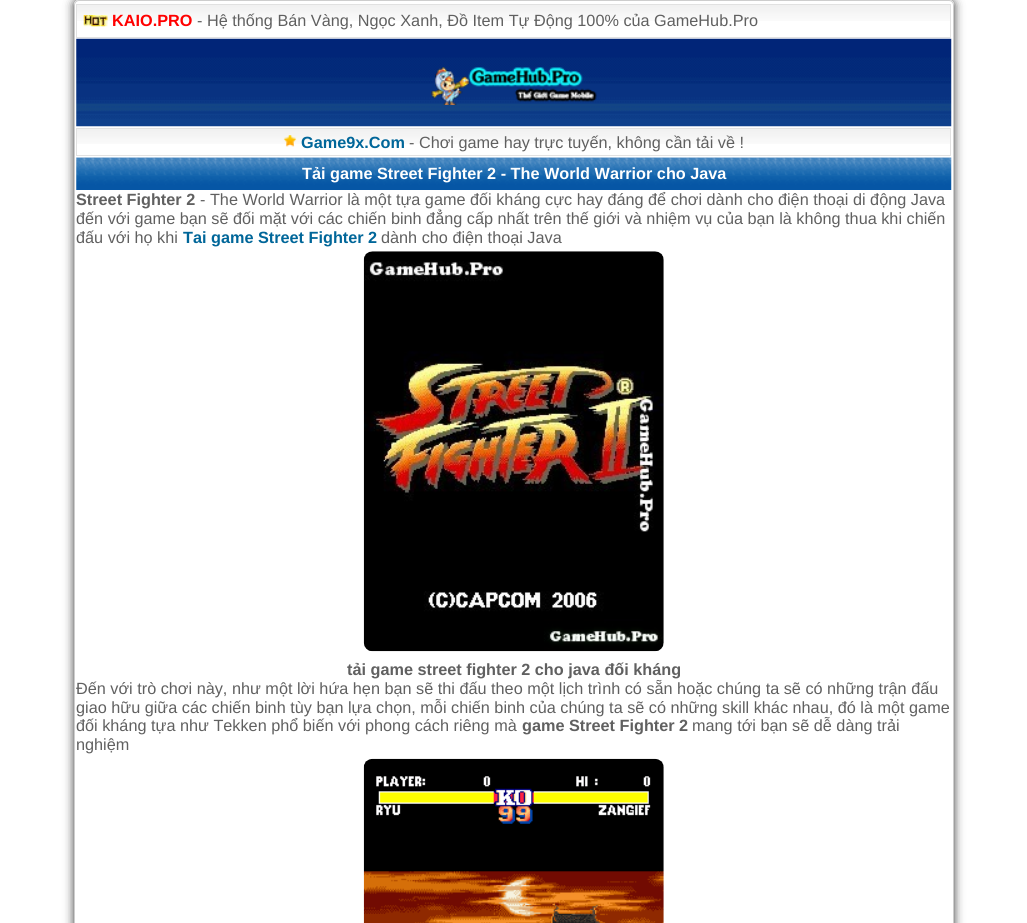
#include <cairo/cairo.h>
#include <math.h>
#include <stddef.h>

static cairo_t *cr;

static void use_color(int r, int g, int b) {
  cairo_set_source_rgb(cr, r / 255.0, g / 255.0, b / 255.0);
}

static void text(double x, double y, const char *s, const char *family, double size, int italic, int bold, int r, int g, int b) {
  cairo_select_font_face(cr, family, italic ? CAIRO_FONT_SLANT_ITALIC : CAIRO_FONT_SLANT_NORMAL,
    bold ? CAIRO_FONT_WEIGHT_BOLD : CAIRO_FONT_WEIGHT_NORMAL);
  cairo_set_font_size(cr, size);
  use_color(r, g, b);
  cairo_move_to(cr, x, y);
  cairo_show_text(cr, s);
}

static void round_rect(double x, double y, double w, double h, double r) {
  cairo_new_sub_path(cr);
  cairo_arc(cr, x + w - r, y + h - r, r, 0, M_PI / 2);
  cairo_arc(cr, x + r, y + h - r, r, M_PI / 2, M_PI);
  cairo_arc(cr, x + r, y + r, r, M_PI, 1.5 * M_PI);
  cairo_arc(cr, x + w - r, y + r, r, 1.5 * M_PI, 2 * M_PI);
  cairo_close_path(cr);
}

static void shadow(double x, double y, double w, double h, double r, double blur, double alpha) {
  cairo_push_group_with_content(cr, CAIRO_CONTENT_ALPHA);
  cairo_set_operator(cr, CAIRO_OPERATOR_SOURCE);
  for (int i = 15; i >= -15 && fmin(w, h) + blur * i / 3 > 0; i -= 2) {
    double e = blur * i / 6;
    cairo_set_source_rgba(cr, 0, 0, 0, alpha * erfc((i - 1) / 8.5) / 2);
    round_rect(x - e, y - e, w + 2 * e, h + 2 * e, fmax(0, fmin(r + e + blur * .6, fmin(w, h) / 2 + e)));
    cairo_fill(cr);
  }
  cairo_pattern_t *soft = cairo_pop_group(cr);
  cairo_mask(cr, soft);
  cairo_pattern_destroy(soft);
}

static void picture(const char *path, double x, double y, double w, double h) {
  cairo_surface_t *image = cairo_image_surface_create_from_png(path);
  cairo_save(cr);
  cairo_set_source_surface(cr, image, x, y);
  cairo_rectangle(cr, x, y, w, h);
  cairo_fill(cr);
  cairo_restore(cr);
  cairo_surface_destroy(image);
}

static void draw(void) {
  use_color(255, 255, 255);
  cairo_paint(cr);
  cairo_save(cr);
  cairo_set_fill_rule(cr, CAIRO_FILL_RULE_EVEN_ODD);
  cairo_new_path(cr);
  cairo_move_to(cr, 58, 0);
  cairo_line_to(cr, 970, 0);
  cairo_line_to(cr, 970, 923);
  cairo_line_to(cr, 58, 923);
  cairo_close_path(cr);
  cairo_move_to(cr, 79, 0);
  cairo_line_to(cr, 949, 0);
  cairo_curve_to(cr, 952, 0, 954, 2, 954, 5);
  cairo_line_to(cr, 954, 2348);
  cairo_curve_to(cr, 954, 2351, 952, 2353, 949, 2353);
  cairo_line_to(cr, 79, 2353);
  cairo_curve_to(cr, 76, 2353, 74, 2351, 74, 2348);
  cairo_line_to(cr, 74, 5);
  cairo_curve_to(cr, 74, 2, 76, 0, 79, 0);
  cairo_close_path(cr);
  cairo_clip(cr);
  use_color(52, 52, 52);
  shadow(74, 0, 880, 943, 5, 5, 1);
  cairo_restore(cr);
  round_rect(74.5, 0.5, 879, 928, 4.5);
  use_color(205, 205, 205);
  cairo_set_line_width(cr, 1);
  cairo_stroke(cr);
  picture("img_01.png", 77, 5, 873, 16);
  cairo_rectangle(cr, 76.5, 4.5, 874, 33);
  use_color(225, 225, 225);
  cairo_stroke(cr);
  picture("img_02.png", 83, 15, 25, 12);
  picture("img_03.png", 76, 38, 876, 89);
  picture("img_04.png", 431, 67, 166, 38);
  picture("img_05.png", 77, 129, 873, 15);
  cairo_rectangle(cr, 76.5, 128.5, 874, 27);
  cairo_stroke(cr);
  picture("img_06.png", 283, 135, 14, 12);
  picture("img_07.png", 76, 157, 876, 33);
  picture("img_08.png", 363, 251, 301, 401);
  picture("img_09.png", 363, 758, 301, 165);
  text(112, 26, "KAIO.PRO", "Liberation Sans", 16.25, 0, 1, 255, 0, 0);
  text(197, 26, "- Hệ thống Bán Vàng, Ngọc Xanh, Đồ Item Tự Động 100% của GameHub.Pro", "Liberation Sans", 16.25, 0, 0, 96, 96, 96);
  text(301, 148, "Game9x.Com", "Liberation Sans", 16.25, 0, 1, 0, 102, 153);
  text(409, 148, "- Chơi game hay trực tuyến, không cần tải về !", "Liberation Sans", 16.25, 0, 0, 96, 96, 96);
  text(302, 179, "Tải game Street Fighter 2 - The World Warrior cho Java", "Liberation Sans", 16.25, 0, 1, 255, 255, 255);
  text(76, 205, "Street Fighter 2", "Liberation Sans", 16.25, 0, 1, 96, 96, 96);
  text(200, 205, "- The World Warrior là một tựa game đối kháng cực hay đáng để chơi dành cho điện thoại di động Java", "Liberation Sans", 16.25, 0, 0, 96, 96, 96);
  text(76, 224, "đến với game bạn sẽ đối mặt với các chiến binh đẳng cấp nhất trên thế giới và nhiệm vụ của bạn là không thua khi chiến", "Liberation Sans", 16.25, 0, 0, 96, 96, 96);
  text(76, 243, "đấu với họ khi", "Liberation Sans", 16.25, 0, 0, 96, 96, 96);
  text(183, 243, "Tai game Street Fighter 2", "Liberation Sans", 16.25, 0, 1, 0, 102, 153);
  text(381, 243, "dành cho điện thoại Java", "Liberation Sans", 16.25, 0, 0, 96, 96, 96);
  text(347, 675, "tải game street fighter 2 cho java đối kháng", "Liberation Sans", 16.25, 0, 1, 96, 96, 96);
  text(76, 694, "Đến với trò chơi này, như một lời hứa hẹn bạn sẽ thi đấu theo một lịch trình có sẵn hoặc chúng ta sẽ có những trận đấu", "Liberation Sans", 16.25, 0, 0, 96, 96, 96);
  text(76, 713, "giao hữu giữa các chiến binh tùy bạn lựa chọn, mỗi chiến binh của chúng ta sẽ có những skill khác nhau, đó là một game", "Liberation Sans", 16.25, 0, 0, 96, 96, 96);
  text(76, 731, "đối kháng tựa như Tekken phổ biến với phong cách riêng mà", "Liberation Sans", 16.25, 0, 0, 96, 96, 96);
  text(522, 731, "game Street Fighter 2", "Liberation Sans", 16.25, 0, 1, 96, 96, 96);
  text(692, 731, "mang tới bạn sẽ dễ dàng trải", "Liberation Sans", 16.25, 0, 0, 96, 96, 96);
  text(76, 750, "nghiệm", "Liberation Sans", 16.25, 0, 0, 96, 96, 96);
}

int main(void) {
  cairo_surface_t *surface = cairo_image_surface_create(CAIRO_FORMAT_RGB24, 1027, 923);
  cr = cairo_create(surface);
  cairo_font_options_t *options = cairo_font_options_create();
  cairo_font_options_set_hint_metrics(options, CAIRO_HINT_METRICS_OFF);
  cairo_font_options_set_hint_style(options, CAIRO_HINT_STYLE_NONE);
  cairo_set_font_options(cr, options);
  cairo_set_miter_limit(cr, 4);
  draw();
  cairo_surface_write_to_png(surface, "out.png");
  cairo_font_options_destroy(options);
  cairo_destroy(cr);
  cairo_surface_destroy(surface);
  return 0;
}
